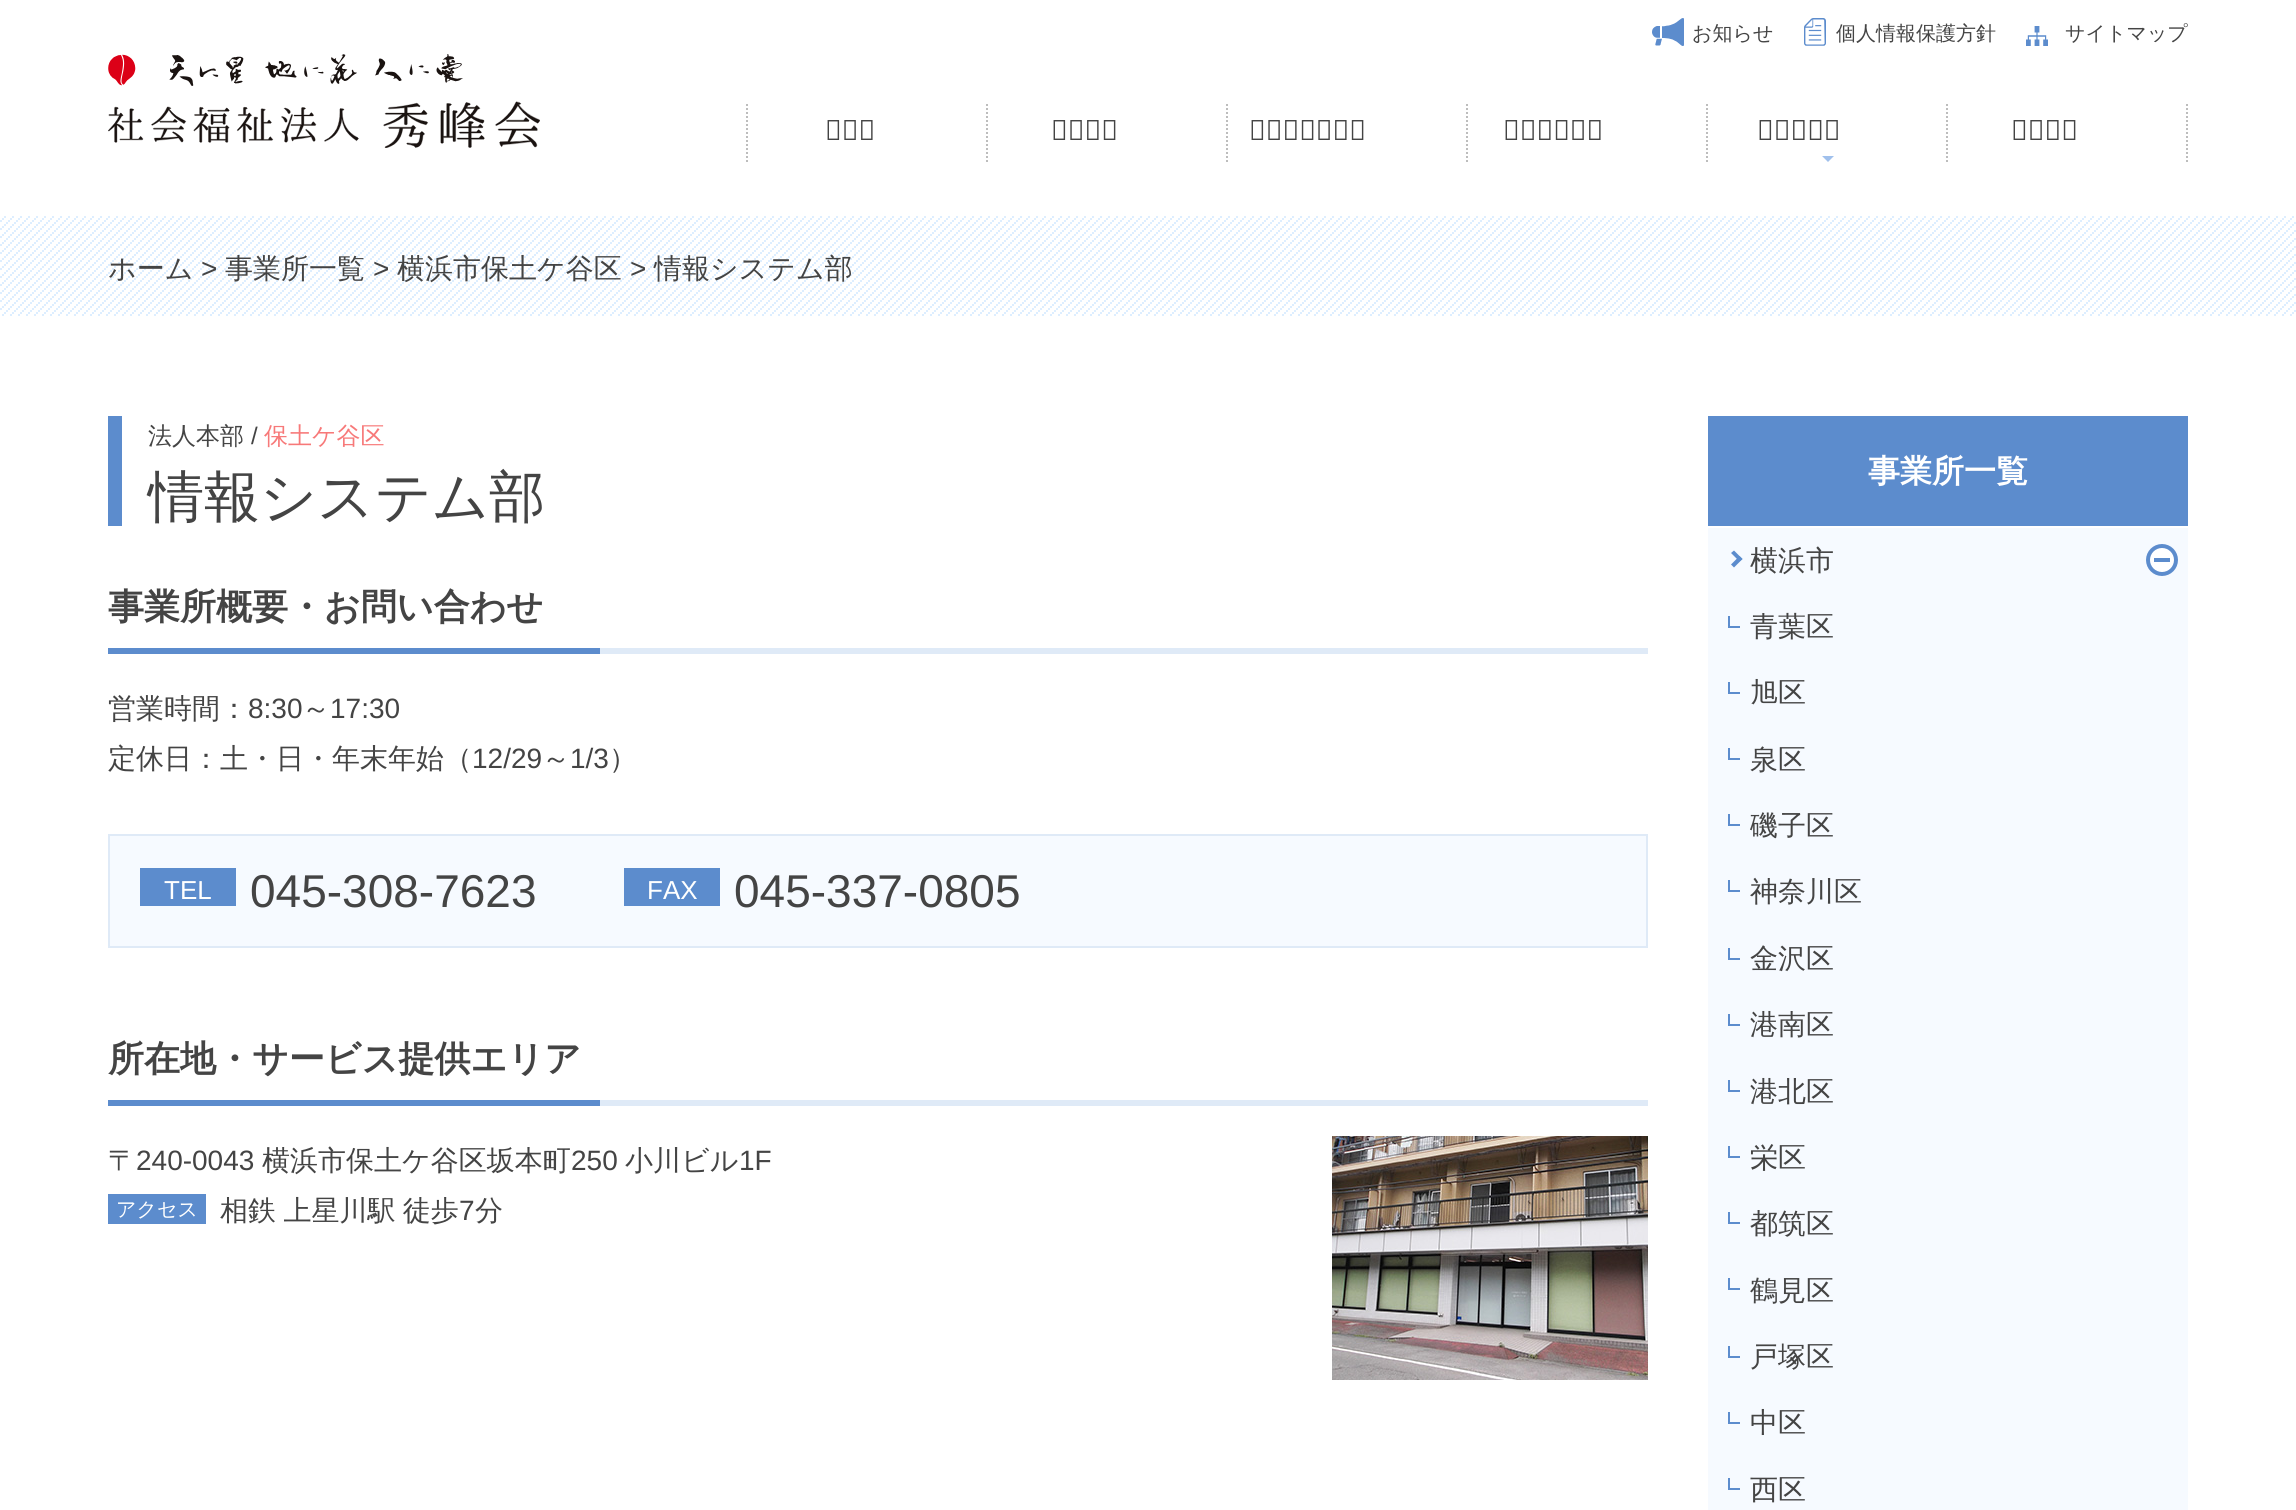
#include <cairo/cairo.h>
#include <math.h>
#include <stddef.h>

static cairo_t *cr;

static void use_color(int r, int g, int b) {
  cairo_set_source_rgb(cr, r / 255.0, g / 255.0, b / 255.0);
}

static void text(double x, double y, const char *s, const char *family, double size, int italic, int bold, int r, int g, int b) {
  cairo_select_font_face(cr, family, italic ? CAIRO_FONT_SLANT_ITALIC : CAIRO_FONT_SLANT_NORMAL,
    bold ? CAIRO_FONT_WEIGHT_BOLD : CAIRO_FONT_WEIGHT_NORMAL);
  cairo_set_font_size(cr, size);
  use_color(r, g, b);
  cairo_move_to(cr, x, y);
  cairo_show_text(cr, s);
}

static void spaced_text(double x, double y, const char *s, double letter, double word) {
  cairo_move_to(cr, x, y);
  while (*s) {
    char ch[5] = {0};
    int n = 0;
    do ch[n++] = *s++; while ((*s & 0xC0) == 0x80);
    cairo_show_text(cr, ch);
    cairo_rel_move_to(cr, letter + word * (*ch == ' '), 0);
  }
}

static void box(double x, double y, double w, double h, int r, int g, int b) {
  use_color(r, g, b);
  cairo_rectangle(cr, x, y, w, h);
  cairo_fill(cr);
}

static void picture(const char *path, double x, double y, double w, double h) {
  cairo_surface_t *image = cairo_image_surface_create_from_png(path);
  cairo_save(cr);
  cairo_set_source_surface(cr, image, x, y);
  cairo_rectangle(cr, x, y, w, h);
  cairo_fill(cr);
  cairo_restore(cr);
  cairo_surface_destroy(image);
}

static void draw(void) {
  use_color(255, 255, 255);
  cairo_paint(cr);
  picture("img_01.png", 1652, 18, 32, 28);
  picture("img_02.png", 1804, 18, 22, 28);
  picture("img_03.png", 2026, 26, 22, 20);
  picture("img_04.png", 108, 54, 432, 94);
  cairo_new_path(cr);
  cairo_move_to(cr, 747, 104);
  cairo_line_to(cr, 747, 162);
  use_color(189, 189, 189);
  cairo_set_dash(cr, (double[]){2, 2}, 2, 0);
  cairo_stroke(cr);
  cairo_new_path(cr);
  cairo_move_to(cr, 987, 104);
  cairo_line_to(cr, 987, 162);
  cairo_stroke(cr);
  cairo_new_path(cr);
  cairo_move_to(cr, 1227, 104);
  cairo_line_to(cr, 1227, 162);
  cairo_stroke(cr);
  cairo_new_path(cr);
  cairo_move_to(cr, 1467, 104);
  cairo_line_to(cr, 1467, 162);
  cairo_stroke(cr);
  cairo_new_path(cr);
  cairo_move_to(cr, 1707, 104);
  cairo_line_to(cr, 1707, 162);
  cairo_stroke(cr);
  cairo_new_path(cr);
  cairo_move_to(cr, 1947, 104);
  cairo_line_to(cr, 1947, 162);
  cairo_stroke(cr);
  use_color(160, 192, 236);
  cairo_new_path(cr);
  cairo_move_to(cr, 1822, 156);
  cairo_line_to(cr, 1834, 156);
  cairo_line_to(cr, 1828, 162);
  cairo_close_path(cr);
  cairo_fill(cr);
  cairo_new_path(cr);
  cairo_move_to(cr, 2187, 104);
  cairo_line_to(cr, 2187, 162);
  use_color(189, 189, 189);
  cairo_stroke(cr);
  picture("img_05.png", 0, 216, 2296, 100);
  box(108, 416, 14, 110, 92, 140, 205);
  box(108, 648, 492, 6, 92, 140, 205);
  box(600, 648, 1048, 6, 223, 234, 247);
  use_color(246, 250, 255);
  cairo_rectangle(cr, 109, 835, 1538, 112);
  cairo_fill_preserve(cr);
  use_color(223, 234, 247);
  cairo_set_dash(cr, NULL, 0, 0);
  cairo_stroke(cr);
  box(140, 868, 96, 38, 92, 140, 205);
  box(624, 868, 96, 38, 92, 140, 205);
  box(108, 1100, 492, 6, 92, 140, 205);
  box(600, 1100, 1048, 6, 223, 234, 247);
  picture("img_06.png", 1332, 1136, 316, 244);
  box(108, 1194, 98, 30, 92, 140, 205);
  box(1708, 416, 480, 110, 92, 140, 205);
  box(1708, 528, 480, 982, 246, 250, 255);
  use_color(92, 140, 205);
  cairo_new_path(cr);
  cairo_move_to(cr, 1734, 550.5);
  cairo_line_to(cr, 1742.5, 559);
  cairo_line_to(cr, 1739.5, 561.5);
  cairo_line_to(cr, 1731, 553);
  cairo_close_path(cr);
  cairo_fill(cr);
  cairo_new_path(cr);
  cairo_move_to(cr, 1739.5, 556);
  cairo_line_to(cr, 1742.5, 559);
  cairo_line_to(cr, 1734, 567.5);
  cairo_line_to(cr, 1731, 564.5);
  cairo_close_path(cr);
  cairo_fill(cr);
  use_color(255, 255, 255);
  cairo_arc(cr, 2162, 560, 14, 0, 2 * M_PI);
  cairo_fill_preserve(cr);
  use_color(92, 140, 205);
  cairo_set_line_width(cr, 4);
  cairo_stroke(cr);
  box(2154, 558, 16, 4, 92, 140, 205);
  box(1728, 626, 12, 2, 92, 140, 205);
  box(1728, 616, 2, 12, 92, 140, 205);
  box(1728, 692, 12, 2, 92, 140, 205);
  box(1728, 682, 2, 12, 92, 140, 205);
  box(1728, 758, 12, 2, 92, 140, 205);
  box(1728, 748, 2, 12, 92, 140, 205);
  box(1728, 824, 12, 2, 92, 140, 205);
  box(1728, 814, 2, 12, 92, 140, 205);
  box(1728, 890, 12, 2, 92, 140, 205);
  box(1728, 880, 2, 12, 92, 140, 205);
  box(1728, 958, 12, 2, 92, 140, 205);
  box(1728, 948, 2, 12, 92, 140, 205);
  box(1728, 1024, 12, 2, 92, 140, 205);
  box(1728, 1014, 2, 12, 92, 140, 205);
  box(1728, 1090, 12, 2, 92, 140, 205);
  box(1728, 1080, 2, 12, 92, 140, 205);
  box(1728, 1156, 12, 2, 92, 140, 205);
  box(1728, 1146, 2, 12, 92, 140, 205);
  box(1728, 1222, 12, 2, 92, 140, 205);
  box(1728, 1212, 2, 12, 92, 140, 205);
  box(1728, 1288, 12, 2, 92, 140, 205);
  box(1728, 1278, 2, 12, 92, 140, 205);
  box(1728, 1356, 12, 2, 92, 140, 205);
  box(1728, 1346, 2, 12, 92, 140, 205);
  box(1728, 1422, 12, 2, 92, 140, 205);
  box(1728, 1412, 2, 12, 92, 140, 205);
  box(1728, 1488, 12, 2, 92, 140, 205);
  box(1728, 1478, 2, 12, 92, 140, 205);
  text(1692, 40, "お知らせ", "WenQuanYi Zen Hei Medium", 20, 0, 0, 68, 68, 68);
  text(1836, 40, "個人情報保護方針", "WenQuanYi Zen Hei Medium", 20, 0, 0, 68, 68, 68);
  text(2065, 40, "サイトマップ", "WenQuanYi Zen Hei Medium", 20, 0, 0, 68, 68, 68);
  text(825, 140, "ホーム", "Noto Sans Medium", 28, 0, 0, 68, 68, 68);
  text(1051, 140, "法人概要", "Noto Sans Medium", 28, 0, 0, 68, 68, 68);
  text(1249, 140, "私たちの取組み", "Noto Sans Medium", 28, 0, 0, 68, 68, 68);
  text(1503, 140, "サービス案内", "Noto Sans Medium", 28, 0, 0, 68, 68, 68);
  text(1757, 140, "事業所一覧", "Noto Sans Medium", 28, 0, 0, 68, 68, 68);
  text(2011, 140, "採用情報", "Noto Sans Medium", 28, 0, 0, 68, 68, 68);
  text(108, 278, "ホーム", "WenQuanYi Zen Hei Medium", 28, 0, 0, 68, 68, 68);
  text(201, 278, ">", "Liberation Sans", 28, 0, 0, 68, 68, 68);
  text(225, 278, "事業所一覧", "WenQuanYi Zen Hei Medium", 28, 0, 0, 68, 68, 68);
  text(373, 278, ">", "Liberation Sans", 28, 0, 0, 68, 68, 68);
  text(397, 278, "横浜市保土ケ谷区", "WenQuanYi Zen Hei Medium", 28, 0, 0, 68, 68, 68);
  text(630, 278, ">", "Liberation Sans", 28, 0, 0, 68, 68, 68);
  text(654, 278, "情報システム部", "WenQuanYi Zen Hei Medium", 28, 0, 0, 68, 68, 68);
  text(148, 444, "法人本部", "WenQuanYi Zen Hei Medium", 24, 0, 0, 68, 68, 68);
  text(251, 444, "/", "Liberation Sans", 24, 0, 0, 68, 68, 68);
  text(264, 444, "保土ケ谷区", "WenQuanYi Zen Hei Medium", 24, 0, 0, 247, 121, 121);
  text(148, 516, "情報システム部", "WenQuanYi Zen Hei Medium", 56, 0, 0, 68, 68, 68);
  text(108, 619, "事業所概要・お問い合わせ", "WenQuanYi Zen Hei", 36, 0, 1, 68, 68, 68);
  text(108, 718, "営業時間：", "WenQuanYi Zen Hei Medium", 28, 0, 0, 68, 68, 68);
  text(248, 718, "8:30", "Liberation Sans", 28, 0, 0, 68, 68, 68);
  text(302, 718, "～", "WenQuanYi Zen Hei Medium", 28, 0, 0, 68, 68, 68);
  text(330, 718, "17:30", "Liberation Sans", 28, 0, 0, 68, 68, 68);
  text(108, 768, "定休日：土・日・年末年始（", "WenQuanYi Zen Hei Medium", 28, 0, 0, 68, 68, 68);
  text(472, 768, "12/29", "Liberation Sans", 28, 0, 0, 68, 68, 68);
  text(542, 768, "～", "WenQuanYi Zen Hei Medium", 28, 0, 0, 68, 68, 68);
  text(570, 768, "1/3", "Liberation Sans", 28, 0, 0, 68, 68, 68);
  text(609, 768, "）", "WenQuanYi Zen Hei Medium", 28, 0, 0, 68, 68, 68);
  text(164, 899, "TEL", "Liberation Sans", 26, 0, 0, 255, 255, 255);
  text(250, 907, "045-308-7623", "Liberation Sans", 46, 0, 0, 68, 68, 68);
  text(647, 899, "FAX", "Liberation Sans", 26, 0, 0, 255, 255, 255);
  text(734, 907, "045-337-0805", "Liberation Sans", 46, 0, 0, 68, 68, 68);
  text(108, 1071, "所在地・サービス提供エリア", "WenQuanYi Zen Hei", 36, 0, 1, 68, 68, 68);
  text(108, 1170, "〒", "WenQuanYi Zen Hei Medium", 28, 0, 0, 68, 68, 68);
  text(136, 1170, "240-0043", "Liberation Sans", 28, 0, 0, 68, 68, 68);
  text(262, 1170, "横浜市保土ケ谷区坂本町", "WenQuanYi Zen Hei Medium", 28, 0, 0, 68, 68, 68);
  text(571, 1170, "250", "Liberation Sans", 28, 0, 0, 68, 68, 68);
  text(625, 1170, "小川ビル", "WenQuanYi Zen Hei Medium", 28, 0, 0, 68, 68, 68);
  text(739, 1170, "1F", "Liberation Sans", 28, 0, 0, 68, 68, 68);
  text(116, 1216, "アクセス", "WenQuanYi Zen Hei Medium", 20, 0, 0, 255, 255, 255);
  cairo_set_font_size(cr, 28);
  use_color(68, 68, 68);
  spaced_text(220, 1220, "相鉄 上星川駅 徒歩", 0, -1);
  text(459, 1220, "7", "Liberation Sans", 28, 0, 0, 68, 68, 68);
  text(475, 1220, "分", "WenQuanYi Zen Hei Medium", 28, 0, 0, 68, 68, 68);
  text(1868, 482, "事業所一覧", "WenQuanYi Zen Hei", 32, 0, 1, 255, 255, 255);
  text(1750, 570, "横浜市", "WenQuanYi Zen Hei Medium", 28, 0, 0, 68, 68, 68);
  text(1750, 636, "青葉区", "WenQuanYi Zen Hei Medium", 28, 0, 0, 68, 68, 68);
  text(1750, 702, "旭区", "WenQuanYi Zen Hei Medium", 28, 0, 0, 68, 68, 68);
  text(1750, 769, "泉区", "WenQuanYi Zen Hei Medium", 28, 0, 0, 68, 68, 68);
  text(1750, 835, "磯子区", "WenQuanYi Zen Hei Medium", 28, 0, 0, 68, 68, 68);
  text(1750, 901, "神奈川区", "WenQuanYi Zen Hei Medium", 28, 0, 0, 68, 68, 68);
  text(1750, 968, "金沢区", "WenQuanYi Zen Hei Medium", 28, 0, 0, 68, 68, 68);
  text(1750, 1034, "港南区", "WenQuanYi Zen Hei Medium", 28, 0, 0, 68, 68, 68);
  text(1750, 1101, "港北区", "WenQuanYi Zen Hei Medium", 28, 0, 0, 68, 68, 68);
  text(1750, 1167, "栄区", "WenQuanYi Zen Hei Medium", 28, 0, 0, 68, 68, 68);
  text(1750, 1233, "都筑区", "WenQuanYi Zen Hei Medium", 28, 0, 0, 68, 68, 68);
  text(1750, 1300, "鶴見区", "WenQuanYi Zen Hei Medium", 28, 0, 0, 68, 68, 68);
  text(1750, 1366, "戸塚区", "WenQuanYi Zen Hei Medium", 28, 0, 0, 68, 68, 68);
  text(1750, 1432, "中区", "WenQuanYi Zen Hei Medium", 28, 0, 0, 68, 68, 68);
  text(1750, 1499, "西区", "WenQuanYi Zen Hei Medium", 28, 0, 0, 68, 68, 68);
}

int main(void) {
  cairo_surface_t *surface = cairo_image_surface_create(CAIRO_FORMAT_RGB24, 2296, 1510);
  cr = cairo_create(surface);
  cairo_font_options_t *options = cairo_font_options_create();
  cairo_font_options_set_hint_metrics(options, CAIRO_HINT_METRICS_OFF);
  cairo_font_options_set_hint_style(options, CAIRO_HINT_STYLE_NONE);
  cairo_set_font_options(cr, options);
  cairo_set_miter_limit(cr, 4);
  draw();
  cairo_surface_write_to_png(surface, "out.png");
  cairo_font_options_destroy(options);
  cairo_destroy(cr);
  cairo_surface_destroy(surface);
  return 0;
}
